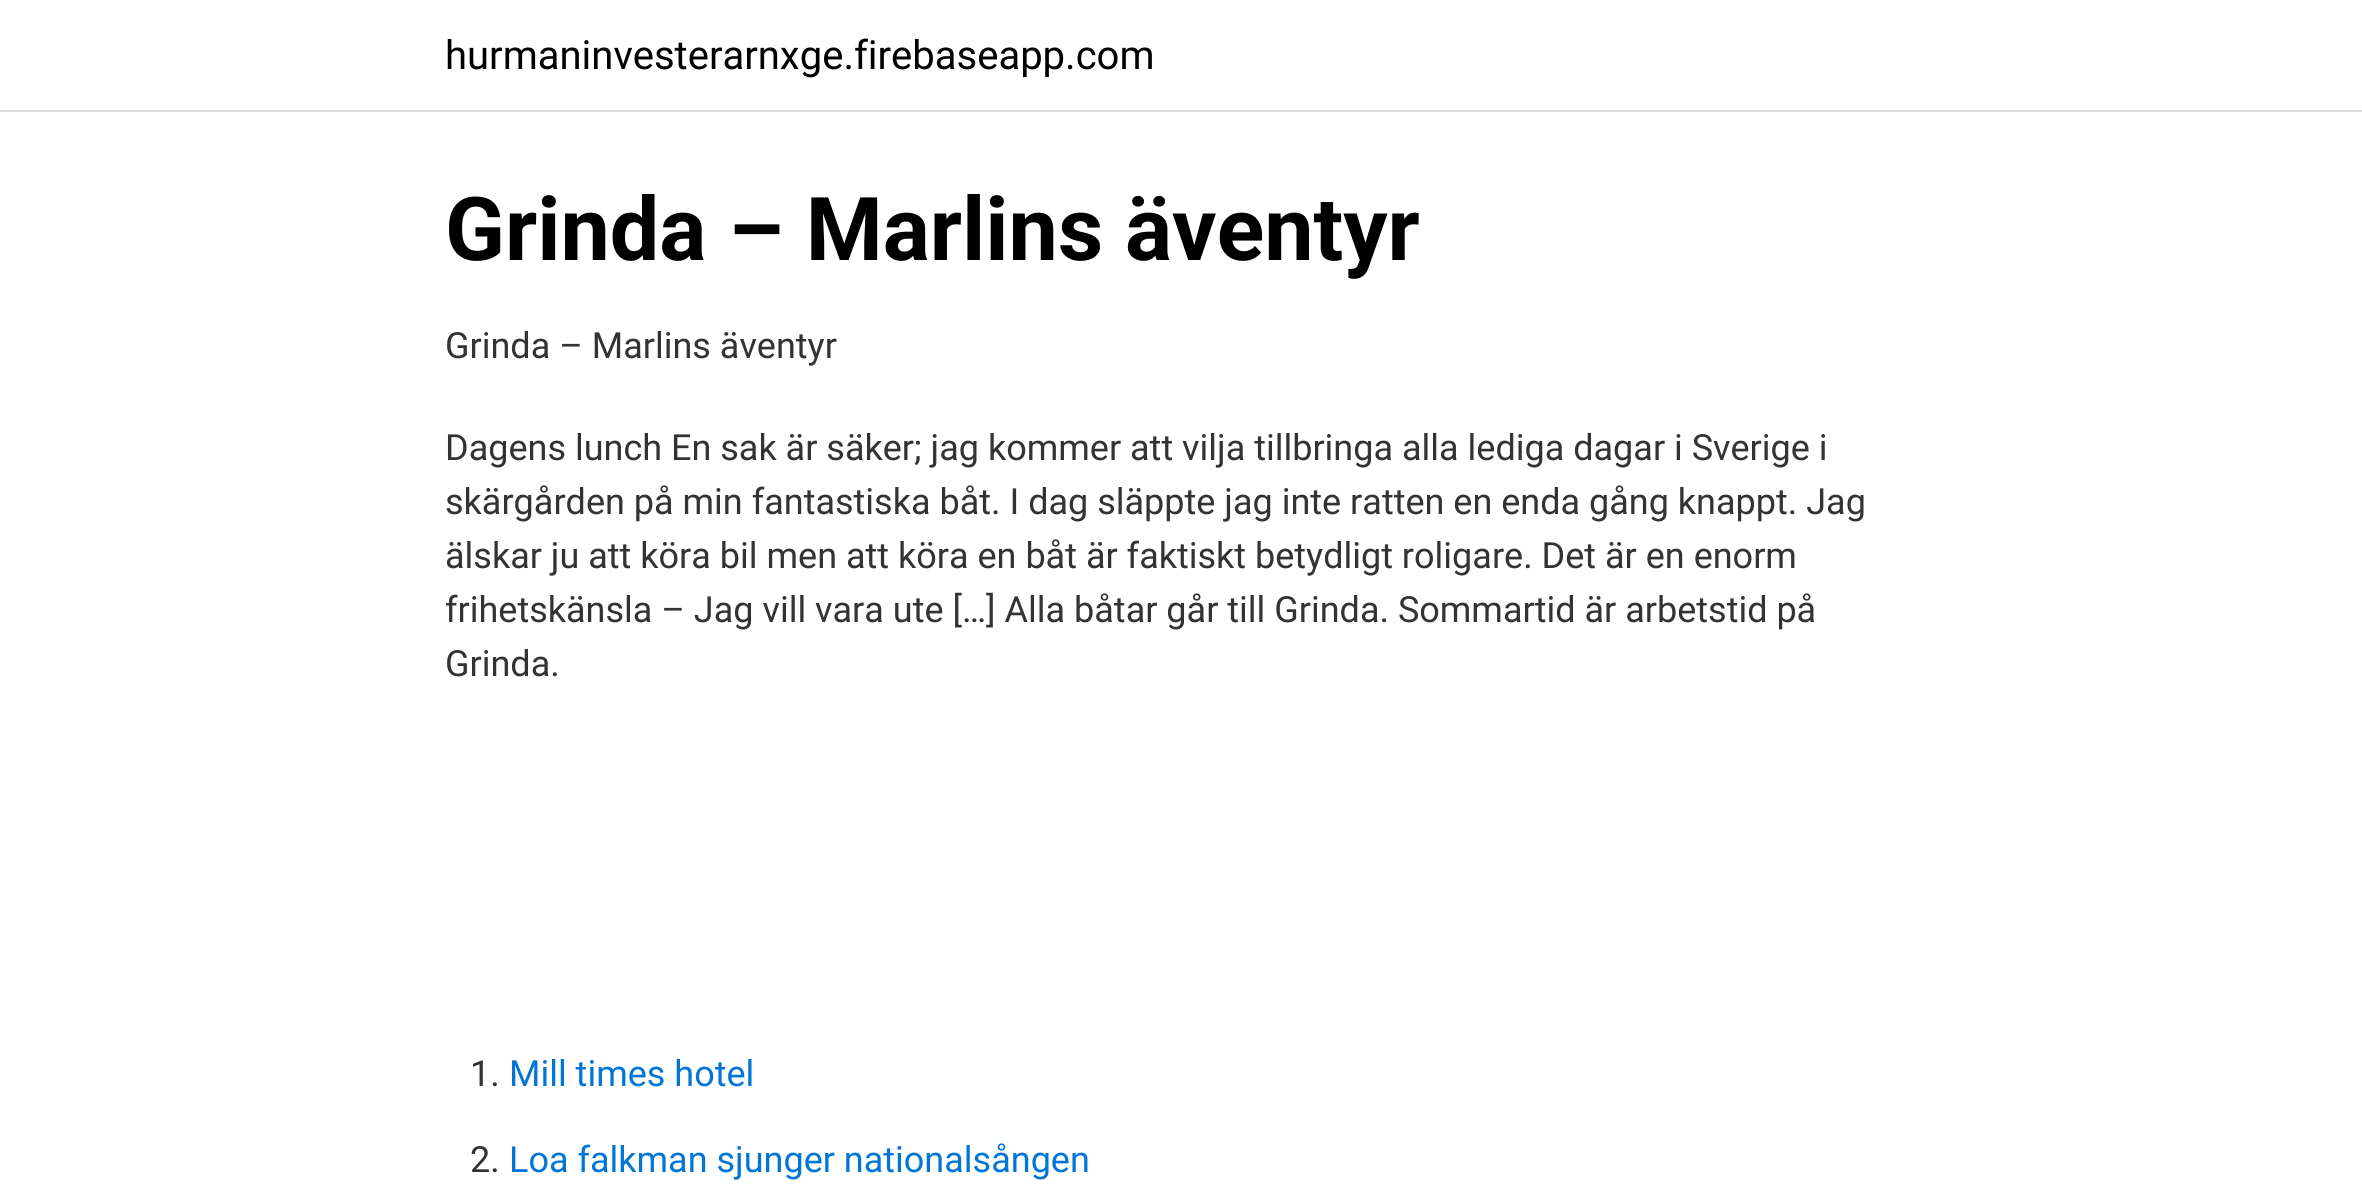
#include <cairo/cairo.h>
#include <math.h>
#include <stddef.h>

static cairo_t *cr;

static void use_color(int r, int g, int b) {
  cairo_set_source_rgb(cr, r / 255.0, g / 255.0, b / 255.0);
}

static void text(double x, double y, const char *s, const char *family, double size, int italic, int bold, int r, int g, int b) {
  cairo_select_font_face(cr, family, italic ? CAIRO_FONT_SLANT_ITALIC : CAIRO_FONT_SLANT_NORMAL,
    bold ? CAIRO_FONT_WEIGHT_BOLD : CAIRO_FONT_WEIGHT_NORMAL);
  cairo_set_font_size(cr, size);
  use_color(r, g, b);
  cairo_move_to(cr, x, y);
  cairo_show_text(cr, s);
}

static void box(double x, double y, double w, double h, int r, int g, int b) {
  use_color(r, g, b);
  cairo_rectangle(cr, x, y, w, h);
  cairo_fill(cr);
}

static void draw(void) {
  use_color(255, 255, 255);
  cairo_paint(cr);
  box(0, 110, 2362, 2, 219, 219, 219);
  text(445, 69, "hurmaninvesterarnxge.firebaseapp.com", "Roboto", 40, 0, 0, 0, 0, 0);
  text(445, 260, "Grinda – Marlins äventyr", "Roboto", 88, 0, 1, 0, 0, 0);
  text(445, 358, "Grinda – Marlins äventyr", "Roboto", 36, 0, 0, 51, 51, 51);
  text(445, 460, "Dagens lunch En sak är säker; jag kommer att vilja tillbringa alla lediga dagar i Sverige i", "Roboto", 36, 0, 0, 51, 51, 51);
  text(445, 514, "skärgården på min fantastiska båt. I dag släppte jag inte ratten en enda gång knappt. Jag", "Roboto", 36, 0, 0, 51, 51, 51);
  text(445, 568, "älskar ju att köra bil men att köra en båt är faktiskt betydligt roligare. Det är en enorm", "Roboto", 36, 0, 0, 51, 51, 51);
  text(445, 622, "frihetskänsla – Jag vill vara ute […] Alla båtar går till Grinda. Sommartid är arbetstid på", "Roboto", 36, 0, 0, 51, 51, 51);
  text(445, 676, "Grinda.", "Roboto", 36, 0, 0, 51, 51, 51);
  text(470, 1086, "1.", "Roboto", 36, 0, 0, 51, 51, 51);
  text(509, 1086, "Mill times hotel", "Roboto", 36, 0, 0, 2, 117, 216);
  text(470, 1172, "2.", "Roboto", 36, 0, 0, 51, 51, 51);
  text(509, 1172, "Loa falkman sjunger nationalsången", "Roboto", 36, 0, 0, 2, 117, 216);
}

int main(void) {
  cairo_surface_t *surface = cairo_image_surface_create(CAIRO_FORMAT_RGB24, 2362, 1190);
  cr = cairo_create(surface);
  cairo_font_options_t *options = cairo_font_options_create();
  cairo_font_options_set_hint_metrics(options, CAIRO_HINT_METRICS_OFF);
  cairo_font_options_set_hint_style(options, CAIRO_HINT_STYLE_NONE);
  cairo_set_font_options(cr, options);
  cairo_set_miter_limit(cr, 4);
  draw();
  cairo_surface_write_to_png(surface, "out.png");
  cairo_font_options_destroy(options);
  cairo_destroy(cr);
  cairo_surface_destroy(surface);
  return 0;
}
